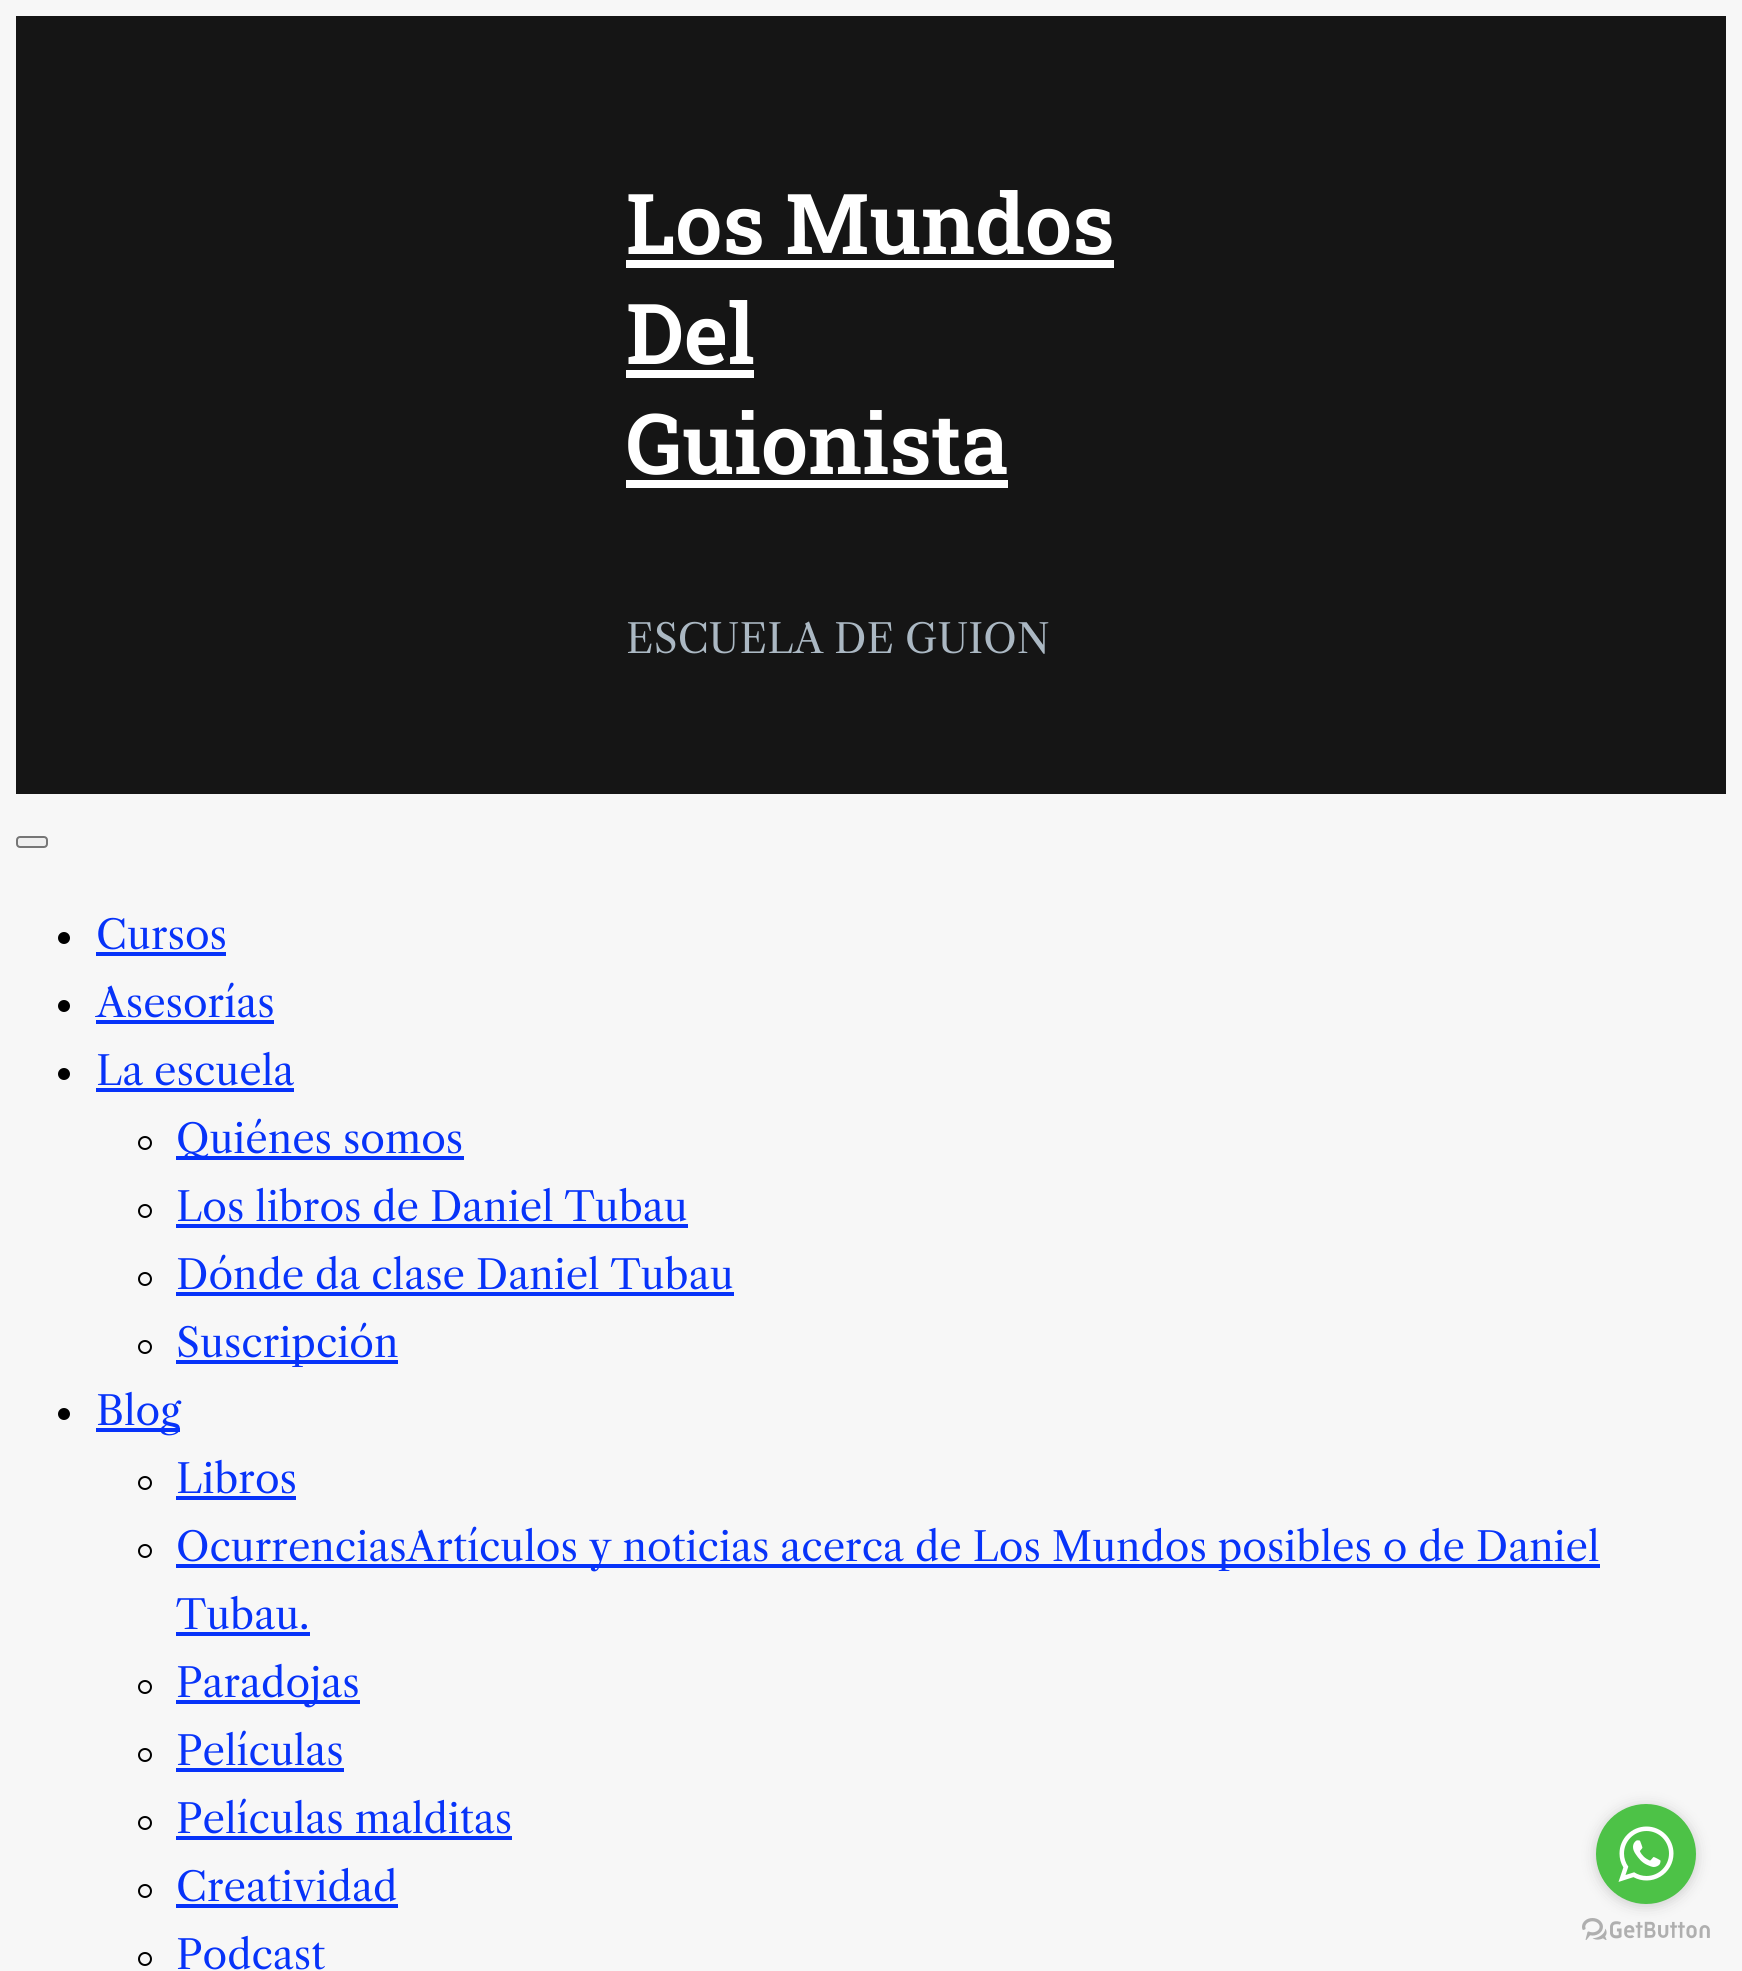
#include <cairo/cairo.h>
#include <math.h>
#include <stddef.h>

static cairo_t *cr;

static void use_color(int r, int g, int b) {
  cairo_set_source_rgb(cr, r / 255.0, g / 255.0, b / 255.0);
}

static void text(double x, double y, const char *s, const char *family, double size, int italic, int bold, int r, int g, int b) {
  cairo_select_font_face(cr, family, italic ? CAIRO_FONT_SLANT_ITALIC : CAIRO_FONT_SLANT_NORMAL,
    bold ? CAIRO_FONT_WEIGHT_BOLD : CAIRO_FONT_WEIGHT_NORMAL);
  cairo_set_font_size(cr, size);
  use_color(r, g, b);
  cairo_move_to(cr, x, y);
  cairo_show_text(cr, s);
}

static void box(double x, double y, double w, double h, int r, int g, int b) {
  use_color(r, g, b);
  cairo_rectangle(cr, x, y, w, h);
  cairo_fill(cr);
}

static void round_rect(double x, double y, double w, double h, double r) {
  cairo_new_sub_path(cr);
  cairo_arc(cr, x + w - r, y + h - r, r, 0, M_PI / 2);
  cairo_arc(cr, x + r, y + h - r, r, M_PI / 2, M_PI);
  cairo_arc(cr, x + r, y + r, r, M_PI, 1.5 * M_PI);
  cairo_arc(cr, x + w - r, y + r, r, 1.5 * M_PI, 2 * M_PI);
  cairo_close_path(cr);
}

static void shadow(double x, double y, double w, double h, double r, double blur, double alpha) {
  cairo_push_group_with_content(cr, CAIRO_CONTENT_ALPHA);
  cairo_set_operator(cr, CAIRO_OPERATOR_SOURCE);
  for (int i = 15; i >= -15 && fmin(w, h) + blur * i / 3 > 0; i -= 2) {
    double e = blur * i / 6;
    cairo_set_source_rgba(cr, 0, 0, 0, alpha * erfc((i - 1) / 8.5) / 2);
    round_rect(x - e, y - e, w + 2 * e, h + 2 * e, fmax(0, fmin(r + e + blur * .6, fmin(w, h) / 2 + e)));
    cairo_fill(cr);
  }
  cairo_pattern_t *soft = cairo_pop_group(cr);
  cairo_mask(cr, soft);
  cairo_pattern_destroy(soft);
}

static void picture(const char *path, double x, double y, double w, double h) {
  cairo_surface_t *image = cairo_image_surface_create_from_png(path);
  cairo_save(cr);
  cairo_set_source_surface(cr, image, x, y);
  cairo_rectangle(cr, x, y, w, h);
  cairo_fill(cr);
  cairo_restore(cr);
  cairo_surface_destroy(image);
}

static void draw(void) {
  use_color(247, 247, 247);
  cairo_paint(cr);
  box(16, 16, 1710, 778, 21, 21, 21);
  box(626, 260, 488, 8, 255, 255, 255);
  box(626, 370, 128, 8, 255, 255, 255);
  box(626, 480, 382, 8, 255, 255, 255);
  use_color(239, 239, 239);
  round_rect(17, 837, 30, 10, 3);
  cairo_fill_preserve(cr);
  use_color(118, 118, 118);
  cairo_stroke(cr);
  use_color(0, 0, 0);
  cairo_arc(cr, 64, 938, 6, 0, 2 * M_PI);
  cairo_fill(cr);
  box(96, 952, 130, 4, 7, 51, 249);
  use_color(0, 0, 0);
  cairo_arc(cr, 64, 1006, 6, 0, 2 * M_PI);
  cairo_fill(cr);
  box(96, 1020, 178, 4, 7, 51, 249);
  use_color(0, 0, 0);
  cairo_arc(cr, 64, 1074, 6, 0, 2 * M_PI);
  cairo_fill(cr);
  box(96, 1088, 198, 4, 7, 51, 249);
  cairo_arc(cr, 145, 1143, 6, 0, 2 * M_PI);
  use_color(0, 0, 0);
  cairo_stroke(cr);
  box(176, 1156, 288, 4, 7, 51, 249);
  cairo_arc(cr, 145, 1211, 6, 0, 2 * M_PI);
  use_color(0, 0, 0);
  cairo_stroke(cr);
  box(176, 1224, 512, 4, 7, 51, 249);
  cairo_arc(cr, 145, 1279, 6, 0, 2 * M_PI);
  use_color(0, 0, 0);
  cairo_stroke(cr);
  box(176, 1292, 558, 4, 7, 51, 249);
  cairo_arc(cr, 145, 1347, 6, 0, 2 * M_PI);
  use_color(0, 0, 0);
  cairo_stroke(cr);
  box(176, 1360, 222, 4, 7, 51, 249);
  use_color(0, 0, 0);
  cairo_arc(cr, 64, 1414, 6, 0, 2 * M_PI);
  cairo_fill(cr);
  box(96, 1428, 84, 4, 7, 51, 249);
  cairo_arc(cr, 145, 1483, 6, 0, 2 * M_PI);
  use_color(0, 0, 0);
  cairo_stroke(cr);
  box(176, 1496, 120, 4, 7, 51, 249);
  cairo_arc(cr, 145, 1551, 6, 0, 2 * M_PI);
  use_color(0, 0, 0);
  cairo_stroke(cr);
  box(176, 1564, 1424, 4, 7, 51, 249);
  box(176, 1632, 134, 4, 7, 51, 249);
  cairo_arc(cr, 145, 1687, 6, 0, 2 * M_PI);
  use_color(0, 0, 0);
  cairo_stroke(cr);
  box(176, 1700, 184, 4, 7, 51, 249);
  cairo_arc(cr, 145, 1755, 6, 0, 2 * M_PI);
  use_color(0, 0, 0);
  cairo_stroke(cr);
  box(176, 1768, 168, 4, 7, 51, 249);
  cairo_arc(cr, 145, 1823, 6, 0, 2 * M_PI);
  use_color(0, 0, 0);
  cairo_stroke(cr);
  box(176, 1836, 336, 4, 7, 51, 249);
  cairo_arc(cr, 145, 1891, 6, 0, 2 * M_PI);
  use_color(0, 0, 0);
  cairo_stroke(cr);
  box(176, 1904, 222, 4, 7, 51, 249);
  cairo_arc(cr, 145, 1959, 6, 0, 2 * M_PI);
  use_color(0, 0, 0);
  cairo_stroke(cr);
  picture("img_02.png", 1582, 1918, 128, 22);
  use_color(136, 136, 136);
  shadow(1596, 1806, 100, 100, 50, 7, 0.4);
  use_color(77, 194, 71);
  cairo_arc(cr, 1646, 1854, 50, 0, 2 * M_PI);
  cairo_fill(cr);
  picture("img_01.png", 1618, 1826, 56, 56);
  text(626, 254, "Los Mundos", "Roboto Slab SemiBold", 84, 0, 0, 255, 255, 255);
  text(626, 364, "Del", "Roboto Slab SemiBold", 84, 0, 0, 255, 255, 255);
  text(626, 474, "Guionista", "Roboto Slab SemiBold", 84, 0, 0, 255, 255, 255);
  text(626, 653, "ESCUELA DE GUION", "Libre Caslon Text", 40, 0, 0, 171, 184, 195);
  text(96, 949, "Cursos", "Libre Caslon Text", 40, 0, 0, 7, 51, 249);
  text(96, 1017, "Asesorías", "Libre Caslon Text", 40, 0, 0, 7, 51, 249);
  text(96, 1085, "La escuela", "Libre Caslon Text", 40, 0, 0, 7, 51, 249);
  text(176, 1153, "Quiénes somos", "Libre Caslon Text", 40, 0, 0, 7, 51, 249);
  text(176, 1221, "Los libros de Daniel Tubau", "Libre Caslon Text", 40, 0, 0, 7, 51, 249);
  text(176, 1289, "Dónde da clase Daniel Tubau", "Libre Caslon Text", 40, 0, 0, 7, 51, 249);
  text(176, 1357, "Suscripción", "Libre Caslon Text", 40, 0, 0, 7, 51, 249);
  text(96, 1425, "Blog", "Libre Caslon Text", 40, 0, 0, 7, 51, 249);
  text(176, 1493, "Libros", "Libre Caslon Text", 40, 0, 0, 7, 51, 249);
  text(176, 1561, "OcurrenciasArtículos y noticias acerca de Los Mundos posibles o de Daniel", "Libre Caslon Text", 40, 0, 0, 7, 51, 249);
  text(176, 1629, "Tubau.", "Libre Caslon Text", 40, 0, 0, 7, 51, 249);
  text(176, 1697, "Paradojas", "Libre Caslon Text", 40, 0, 0, 7, 51, 249);
  text(176, 1765, "Películas", "Libre Caslon Text", 40, 0, 0, 7, 51, 249);
  text(176, 1833, "Películas malditas", "Libre Caslon Text", 40, 0, 0, 7, 51, 249);
  text(176, 1901, "Creatividad", "Libre Caslon Text", 40, 0, 0, 7, 51, 249);
  text(176, 1969, "Podcast", "Libre Caslon Text", 40, 0, 0, 7, 51, 249);
}

int main(void) {
  cairo_surface_t *surface = cairo_image_surface_create(CAIRO_FORMAT_RGB24, 1742, 1971);
  cr = cairo_create(surface);
  cairo_font_options_t *options = cairo_font_options_create();
  cairo_font_options_set_hint_metrics(options, CAIRO_HINT_METRICS_OFF);
  cairo_font_options_set_hint_style(options, CAIRO_HINT_STYLE_NONE);
  cairo_set_font_options(cr, options);
  cairo_set_miter_limit(cr, 4);
  draw();
  cairo_surface_write_to_png(surface, "out.png");
  cairo_font_options_destroy(options);
  cairo_destroy(cr);
  cairo_surface_destroy(surface);
  return 0;
}
